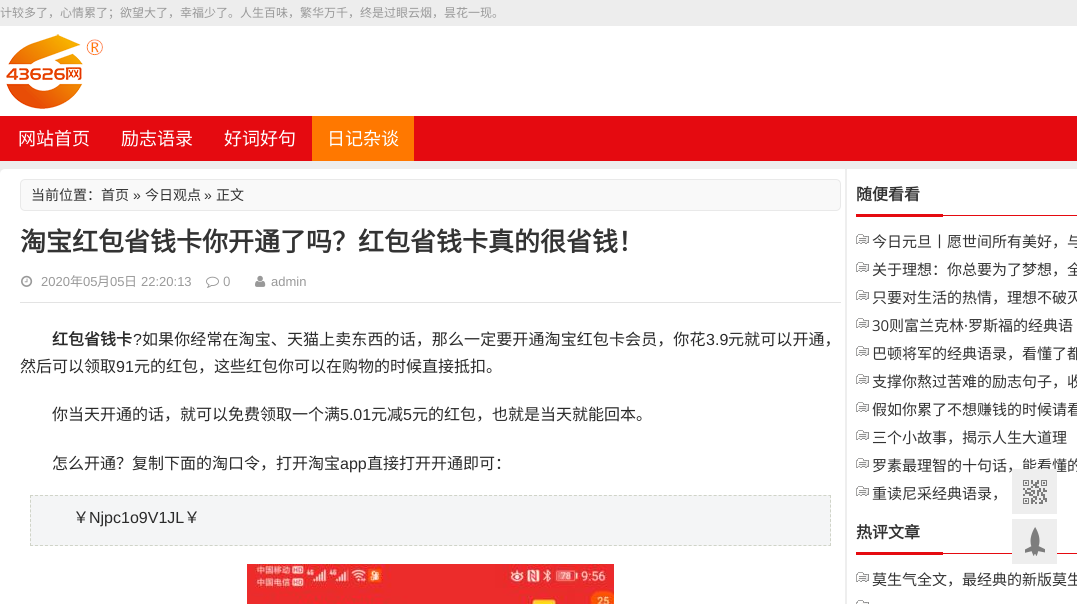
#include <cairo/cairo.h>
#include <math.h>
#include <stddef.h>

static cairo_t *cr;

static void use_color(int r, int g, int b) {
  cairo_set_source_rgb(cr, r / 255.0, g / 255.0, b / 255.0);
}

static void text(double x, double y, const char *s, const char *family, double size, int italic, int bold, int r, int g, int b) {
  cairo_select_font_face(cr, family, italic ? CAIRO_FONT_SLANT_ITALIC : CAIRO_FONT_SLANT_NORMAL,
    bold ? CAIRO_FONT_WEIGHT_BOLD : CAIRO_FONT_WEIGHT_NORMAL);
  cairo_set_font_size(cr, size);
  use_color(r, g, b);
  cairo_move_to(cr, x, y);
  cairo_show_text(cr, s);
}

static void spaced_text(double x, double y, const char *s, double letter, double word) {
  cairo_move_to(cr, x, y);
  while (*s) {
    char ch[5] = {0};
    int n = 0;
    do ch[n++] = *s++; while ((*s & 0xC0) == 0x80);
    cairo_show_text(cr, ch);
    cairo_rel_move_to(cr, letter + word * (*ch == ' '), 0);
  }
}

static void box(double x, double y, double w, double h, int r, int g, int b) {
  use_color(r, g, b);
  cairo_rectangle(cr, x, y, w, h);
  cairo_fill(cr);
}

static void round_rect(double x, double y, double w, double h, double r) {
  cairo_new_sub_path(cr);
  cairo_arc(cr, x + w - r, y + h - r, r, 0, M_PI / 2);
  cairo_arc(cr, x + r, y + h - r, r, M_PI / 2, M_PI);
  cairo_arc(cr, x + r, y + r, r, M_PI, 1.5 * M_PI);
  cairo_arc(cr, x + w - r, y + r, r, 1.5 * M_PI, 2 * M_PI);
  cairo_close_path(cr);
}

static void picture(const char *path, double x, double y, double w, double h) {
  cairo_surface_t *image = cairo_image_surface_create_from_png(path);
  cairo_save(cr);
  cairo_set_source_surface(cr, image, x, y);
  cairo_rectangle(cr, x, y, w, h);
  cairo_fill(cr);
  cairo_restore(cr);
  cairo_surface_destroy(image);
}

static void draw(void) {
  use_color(237, 237, 237);
  cairo_paint(cr);
  box(0, 26, 1077, 90, 255, 255, 255);
  picture("img_01.png", 6, 34, 97, 75);
  box(0, 116, 1077, 45, 229, 10, 16);
  box(312, 116, 102, 45, 255, 120, 0);
  use_color(255, 255, 255);
  round_rect(0, 169, 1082, 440, 5);
  cairo_fill(cr);
  box(845, 169, 2, 435, 238, 238, 238);
  use_color(249, 249, 249);
  round_rect(20.5, 179.5, 820, 31, 4.5);
  cairo_fill_preserve(cr);
  use_color(233, 233, 233);
  cairo_set_line_width(cr, 1);
  cairo_stroke(cr);
  box(20, 302, 821, 1, 227, 227, 227);
  picture("img_02.png", 21, 275, 12, 12);
  picture("img_03.png", 206, 276, 13, 12);
  picture("img_04.png", 255, 275, 11, 12);
  box(30, 495, 801, 51, 244, 245, 246);
  cairo_new_path(cr);
  cairo_move_to(cr, 30, 495.5);
  cairo_line_to(cr, 831, 495.5);
  use_color(208, 212, 200);
  cairo_set_dash(cr, (double[]){3, 1.99}, 2, 0);
  cairo_stroke(cr);
  cairo_new_path(cr);
  cairo_move_to(cr, 830.5, 495);
  cairo_line_to(cr, 830.5, 546);
  cairo_set_dash(cr, (double[]){3, 1.8}, 2, 0);
  cairo_stroke(cr);
  cairo_new_path(cr);
  cairo_move_to(cr, 30, 545.5);
  cairo_line_to(cr, 831, 545.5);
  cairo_set_dash(cr, (double[]){3, 1.99}, 2, 0);
  cairo_stroke(cr);
  cairo_new_path(cr);
  cairo_move_to(cr, 30.5, 495);
  cairo_line_to(cr, 30.5, 546);
  cairo_set_dash(cr, (double[]){3, 1.8}, 2, 0);
  cairo_stroke(cr);
  picture("img_05.png", 247, 564, 367, 40);
  box(856, 214, 87, 3, 229, 10, 16);
  box(943, 215, 134, 1, 229, 10, 16);
  picture("img_06.png", 856, 234, 13, 10);
  picture("img_06.png", 856, 262, 13, 10);
  picture("img_06.png", 856, 290, 13, 10);
  picture("img_06.png", 856, 318, 13, 10);
  picture("img_06.png", 856, 346, 13, 10);
  picture("img_06.png", 856, 374, 13, 10);
  picture("img_06.png", 856, 402, 13, 10);
  picture("img_06.png", 856, 430, 13, 10);
  picture("img_06.png", 856, 458, 13, 10);
  picture("img_06.png", 856, 486, 13, 10);
  box(856, 552, 87, 3, 229, 10, 16);
  box(943, 553, 134, 1, 229, 10, 16);
  picture("img_06.png", 856, 572, 13, 10);
  picture("img_07.png", 856, 600, 13, 4);
  picture("img_09.png", 1012, 519, 45, 45);
  text(0, 17, "计较多了，心情累了；欲望大了，幸福少了。人生百味，繁华万千，终是过眼云烟，昙花一现。", "Noto Sans CJK SC", 12, 0, 0, 153, 153, 153);
  text(18, 145, "网站首页", "Noto Sans CJK SC", 18, 0, 0, 255, 255, 255);
  text(121, 145, "励志语录", "Noto Sans CJK SC", 18, 0, 0, 255, 255, 255);
  text(224, 145, "好词好句", "Noto Sans CJK SC", 18, 0, 0, 255, 255, 255);
  text(327, 145, "日记杂谈", "Noto Sans CJK SC", 18, 0, 0, 255, 255, 255);
  text(31, 200, "当前位置：首页", "Noto Sans CJK SC", 14, 0, 0, 51, 51, 51);
  text(133, 200, "»", "Liberation Sans", 14, 0, 0, 51, 51, 51);
  text(145, 200, "今日观点", "Noto Sans CJK SC", 14, 0, 0, 51, 51, 51);
  text(204, 200, "»", "Liberation Sans", 14, 0, 0, 51, 51, 51);
  text(216, 200, "正文", "Noto Sans CJK SC", 14, 0, 0, 51, 51, 51);
  text(20, 251, "淘宝红包省钱卡你开通了吗？红包省钱卡真的很省钱！", "Noto Sans CJK SC", 26, 0, 1, 51, 51, 51);
  text(41, 286, "2020", "Liberation Sans", 13, 0, 0, 153, 153, 153);
  text(70, 286, "年", "Noto Sans CJK SC", 13, 0, 0, 153, 153, 153);
  text(83, 286, "05", "Liberation Sans", 13, 0, 0, 153, 153, 153);
  text(97, 286, "月", "Noto Sans CJK SC", 13, 0, 0, 153, 153, 153);
  text(110, 286, "05", "Liberation Sans", 13, 0, 0, 153, 153, 153);
  text(124, 286, "日", "Noto Sans CJK SC", 13, 0, 0, 153, 153, 153);
  text(141, 286, "22:20:13", "Liberation Sans", 13, 0, 0, 153, 153, 153);
  text(223, 286, "0", "Open Sans", 13, 0, 0, 153, 153, 153);
  text(271, 286, "admin", "Liberation Sans", 13, 0, 0, 153, 153, 153);
  text(52, 345, "红包省钱卡", "Noto Sans CJK SC", 16, 0, 1, 42, 42, 42);
  cairo_select_font_face(cr, "Liberation Sans", CAIRO_FONT_SLANT_NORMAL, CAIRO_FONT_WEIGHT_NORMAL);
  spaced_text(133, 345, "?", 0.1, 0);
  cairo_select_font_face(cr, "Noto Sans CJK SC", CAIRO_FONT_SLANT_NORMAL, CAIRO_FONT_WEIGHT_NORMAL);
  spaced_text(142, 345, "如果你经常在淘宝、天猫上卖东西的话，那么一定要开通淘宝红包卡会员，你花", 0.1, 0);
  cairo_select_font_face(cr, "Liberation Sans", CAIRO_FONT_SLANT_NORMAL, CAIRO_FONT_WEIGHT_NORMAL);
  spaced_text(706, 345, "3.9", 0.1, 0);
  cairo_select_font_face(cr, "Noto Sans CJK SC", CAIRO_FONT_SLANT_NORMAL, CAIRO_FONT_WEIGHT_NORMAL);
  spaced_text(728, 345, "元就可以开通，", 0.1, 0);
  text(20, 372, "然后可以领取", "Noto Sans CJK SC", 16, 0, 0, 42, 42, 42);
  text(116, 372, "91", "Liberation Sans", 16, 0, 0, 42, 42, 42);
  text(134, 372, "元的红包，这些红包你可以在购物的时候直接抵扣。", "Noto Sans CJK SC", 16, 0, 0, 42, 42, 42);
  text(52, 420, "你当天开通的话，就可以免费领取一个满", "Noto Sans CJK SC", 16, 0, 0, 42, 42, 42);
  text(340, 420, "5.01", "Liberation Sans", 16, 0, 0, 42, 42, 42);
  text(371, 420, "元减", "Noto Sans CJK SC", 16, 0, 0, 42, 42, 42);
  text(403, 420, "5", "Liberation Sans", 16, 0, 0, 42, 42, 42);
  text(412, 420, "元的红包，也就是当天就能回本。", "Noto Sans CJK SC", 16, 0, 0, 42, 42, 42);
  text(52, 469, "怎么开通？复制下面的淘口令，打开淘宝", "Noto Sans CJK SC", 16, 0, 0, 42, 42, 42);
  text(340, 469, "app", "Liberation Sans", 16, 0, 0, 42, 42, 42);
  text(367, 469, "直接打开开通即可：", "Noto Sans CJK SC", 16, 0, 0, 42, 42, 42);
  text(73, 523, "￥", "Noto Sans CJK SC", 16, 0, 0, 42, 42, 42);
  text(89, 523, "Njpc1o9V1JL", "Liberation Sans", 16, 0, 0, 42, 42, 42);
  text(184, 523, "￥", "Noto Sans CJK SC", 16, 0, 0, 42, 42, 42);
  text(856, 200, "随便看看", "Noto Sans CJK SC", 16, 0, 1, 51, 51, 51);
  text(872, 247, "今日元旦丨愿世间所有美好，与", "Noto Sans CJK SC", 15, 0, 0, 51, 51, 51);
  text(872, 275, "关于理想：你总要为了梦想，全", "Noto Sans CJK SC", 15, 0, 0, 51, 51, 51);
  text(872, 303, "只要对生活的热情，理想不破灭", "Noto Sans CJK SC", 15, 0, 0, 51, 51, 51);
  text(872, 331, "30", "Open Sans", 15, 0, 0, 51, 51, 51);
  text(889, 331, "则富兰克林", "Noto Sans CJK SC", 15, 0, 0, 51, 51, 51);
  text(964, 331, "·", "Open Sans", 15, 0, 0, 51, 51, 51);
  text(968, 331, "罗斯福的经典语", "Noto Sans CJK SC", 15, 0, 0, 51, 51, 51);
  text(872, 359, "巴顿将军的经典语录，看懂了都", "Noto Sans CJK SC", 15, 0, 0, 51, 51, 51);
  text(872, 387, "支撑你熬过苦难的励志句子，收", "Noto Sans CJK SC", 15, 0, 0, 51, 51, 51);
  text(872, 415, "假如你累了不想赚钱的时候请看", "Noto Sans CJK SC", 15, 0, 0, 51, 51, 51);
  text(872, 443, "三个小故事，揭示人生大道理", "Noto Sans CJK SC", 15, 0, 0, 51, 51, 51);
  text(872, 471, "罗素最理智的十句话，能看懂的", "Noto Sans CJK SC", 15, 0, 0, 51, 51, 51);
  text(872, 499, "重读尼采经典语录，", "Noto Sans CJK SC", 15, 0, 0, 51, 51, 51);
  text(856, 538, "热评文章", "Noto Sans CJK SC", 16, 0, 1, 51, 51, 51);
  text(872, 585, "莫生气全文，最经典的新版莫生", "Noto Sans CJK SC", 15, 0, 0, 51, 51, 51);
  picture("img_08.png", 1012, 469, 45, 45);
}

int main(void) {
  cairo_surface_t *surface = cairo_image_surface_create(CAIRO_FORMAT_RGB24, 1077, 604);
  cr = cairo_create(surface);
  cairo_font_options_t *options = cairo_font_options_create();
  cairo_font_options_set_hint_metrics(options, CAIRO_HINT_METRICS_OFF);
  cairo_font_options_set_hint_style(options, CAIRO_HINT_STYLE_NONE);
  cairo_set_font_options(cr, options);
  cairo_set_miter_limit(cr, 4);
  draw();
  cairo_surface_write_to_png(surface, "out.png");
  cairo_font_options_destroy(options);
  cairo_destroy(cr);
  cairo_surface_destroy(surface);
  return 0;
}
